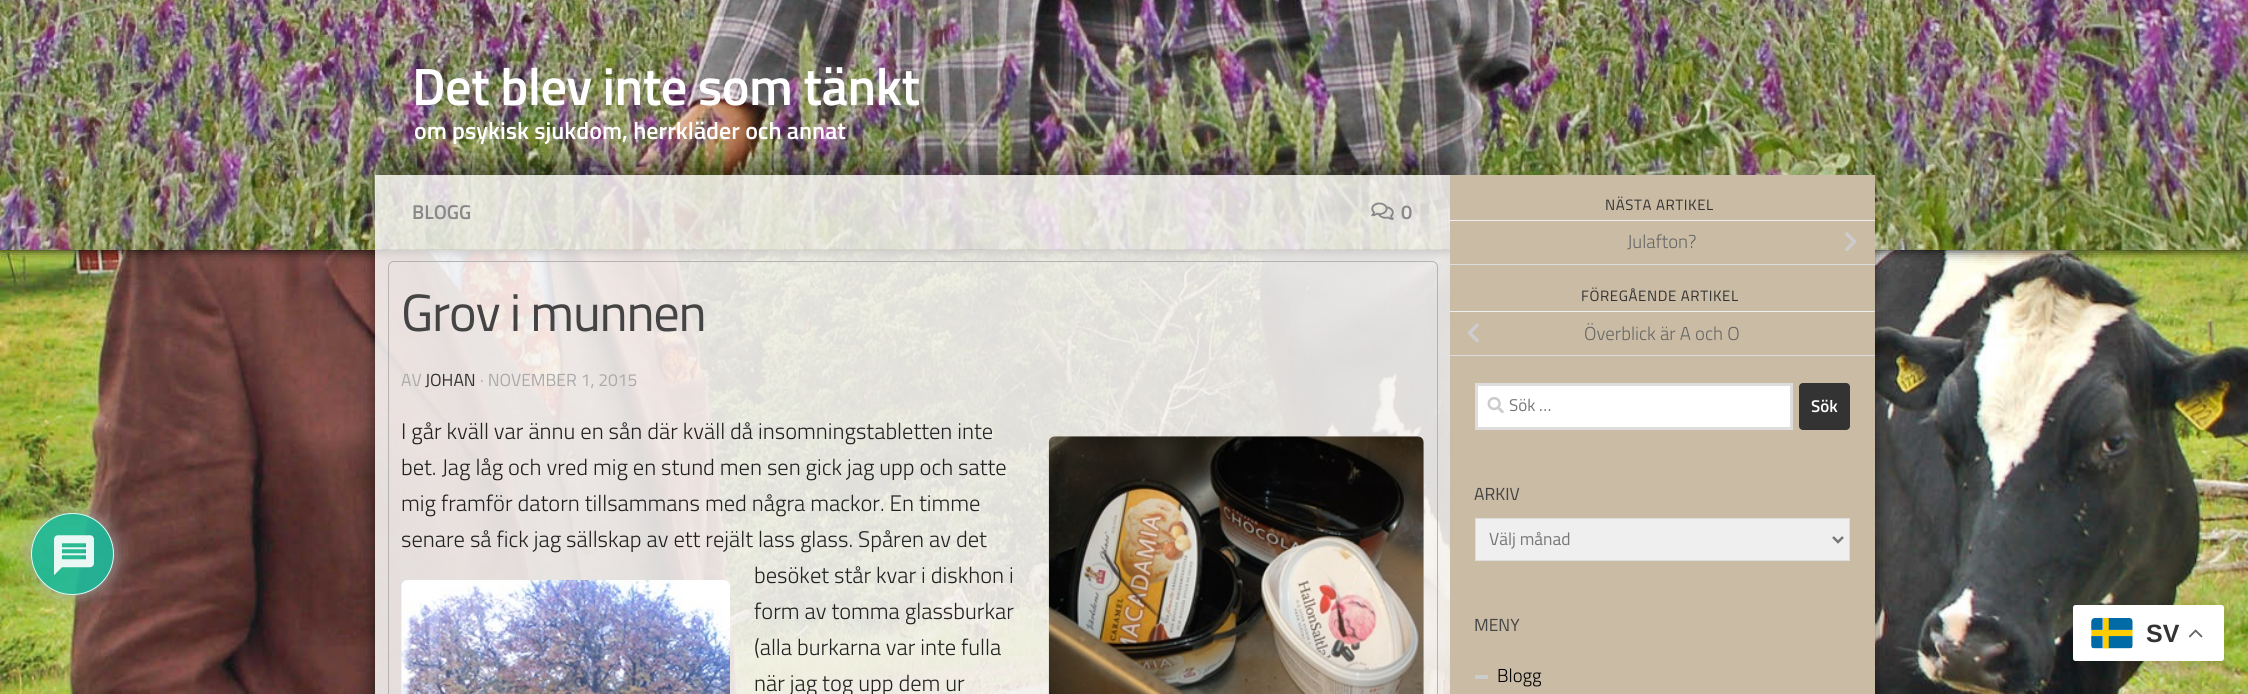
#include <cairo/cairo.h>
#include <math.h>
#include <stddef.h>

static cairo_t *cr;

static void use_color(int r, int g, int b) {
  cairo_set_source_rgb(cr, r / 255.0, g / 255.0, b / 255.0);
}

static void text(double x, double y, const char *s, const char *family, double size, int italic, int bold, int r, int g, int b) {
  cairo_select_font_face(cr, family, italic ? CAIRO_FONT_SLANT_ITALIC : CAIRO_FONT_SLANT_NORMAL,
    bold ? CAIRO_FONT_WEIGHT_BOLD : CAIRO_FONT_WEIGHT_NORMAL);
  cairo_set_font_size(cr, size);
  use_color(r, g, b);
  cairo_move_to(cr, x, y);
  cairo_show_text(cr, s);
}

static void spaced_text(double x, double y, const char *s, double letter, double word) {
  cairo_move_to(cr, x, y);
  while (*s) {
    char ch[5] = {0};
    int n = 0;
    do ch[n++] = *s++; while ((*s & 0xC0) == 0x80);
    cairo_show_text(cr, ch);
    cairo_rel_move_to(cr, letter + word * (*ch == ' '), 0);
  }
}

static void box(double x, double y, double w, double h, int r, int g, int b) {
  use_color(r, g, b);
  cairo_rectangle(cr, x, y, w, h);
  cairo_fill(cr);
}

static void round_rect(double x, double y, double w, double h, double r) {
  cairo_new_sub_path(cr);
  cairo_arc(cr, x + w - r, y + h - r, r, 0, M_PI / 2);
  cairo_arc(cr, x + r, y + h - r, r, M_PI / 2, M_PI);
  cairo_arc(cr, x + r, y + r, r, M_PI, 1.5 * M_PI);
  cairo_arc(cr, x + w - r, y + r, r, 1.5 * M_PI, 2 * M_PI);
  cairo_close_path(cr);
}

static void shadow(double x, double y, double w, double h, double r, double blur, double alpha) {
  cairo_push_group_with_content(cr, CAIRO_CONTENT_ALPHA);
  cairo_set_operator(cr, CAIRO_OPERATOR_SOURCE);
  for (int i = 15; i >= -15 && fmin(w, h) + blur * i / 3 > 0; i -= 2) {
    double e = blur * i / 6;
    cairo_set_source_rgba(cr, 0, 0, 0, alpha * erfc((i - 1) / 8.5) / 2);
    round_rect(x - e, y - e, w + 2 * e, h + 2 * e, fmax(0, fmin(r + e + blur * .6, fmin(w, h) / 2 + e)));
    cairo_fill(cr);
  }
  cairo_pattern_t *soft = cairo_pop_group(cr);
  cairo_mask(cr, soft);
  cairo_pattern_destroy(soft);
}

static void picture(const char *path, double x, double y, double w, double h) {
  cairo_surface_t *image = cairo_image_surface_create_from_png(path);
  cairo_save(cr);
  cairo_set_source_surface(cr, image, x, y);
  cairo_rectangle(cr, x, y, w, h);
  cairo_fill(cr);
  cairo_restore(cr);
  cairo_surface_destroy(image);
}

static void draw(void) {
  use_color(255, 255, 255);
  cairo_paint(cr);
  picture("img_01.png", 0, 250, 2248, 444);
  cairo_save(cr);
  cairo_set_fill_rule(cr, CAIRO_FILL_RULE_EVEN_ODD);
  cairo_new_path(cr);
  cairo_move_to(cr, 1, 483);
  cairo_line_to(cr, 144, 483);
  cairo_line_to(cr, 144, 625);
  cairo_line_to(cr, 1, 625);
  cairo_close_path(cr);
  cairo_move_to(cr, 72, 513);
  cairo_line_to(cr, 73, 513);
  cairo_curve_to(cr, 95.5, 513, 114, 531.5, 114, 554);
  cairo_curve_to(cr, 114, 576.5, 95.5, 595, 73, 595);
  cairo_line_to(cr, 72, 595);
  cairo_curve_to(cr, 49.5, 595, 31, 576.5, 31, 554);
  cairo_curve_to(cr, 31, 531.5, 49.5, 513, 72, 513);
  cairo_close_path(cr);
  cairo_clip(cr);
  use_color(170, 170, 170);
  shadow(31, 513, 83, 82, 41, 9.5, 0.9);
  cairo_restore(cr);
  cairo_set_source_rgba(cr, 0.114, 0.725, 0.604, 0.9);
  round_rect(31, 513, 83, 82, 41);
  cairo_fill(cr);
  round_rect(31.5, 513.5, 82, 81, 40.5);
  cairo_set_source_rgba(cr, 1, 1, 1, 0.9);
  cairo_set_line_width(cr, 1);
  cairo_stroke(cr);
  picture("img_02.png", 54, 535, 40, 41);
  cairo_save(cr);
  cairo_set_fill_rule(cr, CAIRO_FILL_RULE_EVEN_ODD);
  cairo_new_path(cr);
  cairo_move_to(cr, 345, 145);
  cairo_line_to(cr, 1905, 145);
  cairo_line_to(cr, 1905, 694);
  cairo_line_to(cr, 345, 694);
  cairo_close_path(cr);
  cairo_move_to(cr, 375, 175);
  cairo_line_to(cr, 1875, 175);
  cairo_line_to(cr, 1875, 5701);
  cairo_line_to(cr, 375, 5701);
  cairo_close_path(cr);
  cairo_clip(cr);
  use_color(0, 0, 0);
  shadow(375, 175, 1500, 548, 0, 9.5, 0.6);
  cairo_restore(cr);
  cairo_set_source_rgba(cr, 0.969, 0.961, 0.957, 0.4);
  cairo_rectangle(cr, 375, 250, 1075, 444);
  cairo_fill(cr);
  use_color(0, 0, 0);
  shadow(0, 0, 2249, 250, 0, 6, 1);
  picture("img_03.png", 0, 0, 2248, 250);
  cairo_set_source_rgba(cr, 0.969, 0.961, 0.957, 0.8);
  cairo_rectangle(cr, 375, 175, 1075, 519);
  cairo_fill(cr);
  cairo_save(cr);
  cairo_set_fill_rule(cr, CAIRO_FILL_RULE_EVEN_ODD);
  cairo_new_path(cr);
  cairo_move_to(cr, 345, 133);
  cairo_line_to(cr, 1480, 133);
  cairo_line_to(cr, 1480, 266);
  cairo_line_to(cr, 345, 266);
  cairo_close_path(cr);
  cairo_move_to(cr, 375, 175);
  cairo_line_to(cr, 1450, 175);
  cairo_line_to(cr, 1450, 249);
  cairo_line_to(cr, 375, 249);
  cairo_close_path(cr);
  cairo_clip(cr);
  use_color(0, 0, 0);
  shadow(375, 163, 1075, 73, 0, 9.5, 0.4);
  cairo_restore(cr);
  cairo_set_source_rgba(cr, 0.969, 0.961, 0.957, 0.2);
  cairo_rectangle(cr, 375, 175, 1075, 74);
  cairo_fill(cr);
  picture("img_04.png", 1371, 202, 23, 18);
  round_rect(388.5, 261.5, 1049, 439, 5.5);
  use_color(179, 179, 179);
  cairo_stroke(cr);
  picture("img_05.png", 1048, 436, 376, 258);
  picture("img_06.png", 401, 580, 329, 114);
  box(1450, 175, 425, 519, 202, 187, 164);
  box(1450, 220, 425, 1, 238, 238, 238);
  box(1450, 264, 425, 1, 221, 221, 221);
  picture("img_07.png", 1845, 232, 12, 19);
  box(1450, 311, 425, 1, 238, 238, 238);
  box(1450, 355, 425, 1, 221, 221, 221);
  picture("img_08.png", 1467, 323, 12, 20);
  use_color(255, 255, 255);
  cairo_rectangle(cr, 1476.5, 384.5, 315, 44);
  cairo_fill_preserve(cr);
  use_color(221, 221, 221);
  cairo_set_line_width(cr, 3);
  cairo_stroke(cr);
  picture("img_09.png", 1487, 397, 17, 17);
  use_color(51, 51, 51);
  round_rect(1799, 383, 51, 47, 4);
  cairo_fill(cr);
  use_color(239, 239, 239);
  cairo_rectangle(cr, 1475.5, 518.5, 374, 42);
  cairo_fill_preserve(cr);
  use_color(221, 221, 221);
  cairo_set_line_width(cr, 1);
  cairo_stroke(cr);
  cairo_new_path(cr);
  cairo_move_to(cr, 1833, 537);
  cairo_line_to(cr, 1838, 542);
  cairo_line_to(cr, 1843, 537);
  use_color(119, 119, 119);
  cairo_set_line_width(cr, 2.5);
  cairo_stroke(cr);
  box(1475, 675, 13, 4, 204, 204, 204);
  use_color(0, 0, 0);
  shadow(2073, 611, 151, 57, 2.5, 9.5, 0.15);
  use_color(255, 255, 255);
  round_rect(2073, 605, 151, 56, 2.5);
  cairo_fill(cr);
  picture("img_10.png", 2091, 618, 42, 31);
  picture("img_11.png", 2189, 629, 14, 9);
  cairo_select_font_face(cr, "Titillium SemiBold", CAIRO_FONT_SLANT_NORMAL, CAIRO_FONT_WEIGHT_NORMAL);
  cairo_set_font_size(cr, 52.5);
  spaced_text(412, 105, "Det blev inte som tänkt", -0.6, 0);
  text(414, 139, "om psykisk sjukdom, herrkläder och annat", "Titillium SemiBold", 24, 0, 0, 255, 255, 255);
  text(412, 219, "BLOGG", "Titillium SemiBold", 20, 0, 0, 136, 136, 136);
  text(1401, 219, "0", "Titillium SemiBold", 20, 0, 0, 136, 136, 136);
  cairo_select_font_face(cr, "Titillium", CAIRO_FONT_SLANT_NORMAL, CAIRO_FONT_WEIGHT_NORMAL);
  cairo_set_font_size(cr, 52.5);
  use_color(68, 68, 68);
  spaced_text(401, 331, "Grov i munnen", -1.25, 0);
  text(401, 386, "AV", "Titillium", 17.5, 0, 0, 170, 170, 170);
  text(425, 386, "JOHAN", "Titillium", 17.5, 0, 0, 51, 51, 51);
  text(480, 386, "· NOVEMBER 1, 2015", "Titillium", 17.5, 0, 0, 170, 170, 170);
  text(401, 439, "I går kväll var ännu en sån där kväll då insomningstabletten inte", "Titillium Light", 22.5, 0, 0, 34, 34, 34);
  text(401, 475, "bet. Jag låg och vred mig en stund men sen gick jag upp och satte", "Titillium Light", 22.5, 0, 0, 34, 34, 34);
  text(401, 511, "mig framför datorn tillsammans med några mackor. En timme", "Titillium Light", 22.5, 0, 0, 34, 34, 34);
  text(401, 547, "senare så fick jag sällskap av ett rejält lass glass. Spåren av det", "Titillium Light", 22.5, 0, 0, 34, 34, 34);
  text(754, 583, "besöket står kvar i diskhon i", "Titillium Light", 22.5, 0, 0, 34, 34, 34);
  text(754, 619, "form av tomma glassburkar", "Titillium Light", 22.5, 0, 0, 34, 34, 34);
  text(754, 655, "(alla burkarna var inte fulla", "Titillium Light", 22.5, 0, 0, 34, 34, 34);
  text(754, 691, "när jag tog upp dem ur", "Titillium Light", 22.5, 0, 0, 34, 34, 34);
  cairo_select_font_face(cr, "Titillium", CAIRO_FONT_SLANT_NORMAL, CAIRO_FONT_WEIGHT_NORMAL);
  cairo_set_font_size(cr, 15);
  use_color(51, 51, 51);
  spaced_text(1605, 210, "NÄSTA ARTIKEL", 0.6, 0);
  text(1627, 248, "Julafton?", "Titillium Light", 18.75, 0, 0, 102, 102, 102);
  cairo_select_font_face(cr, "Titillium", CAIRO_FONT_SLANT_NORMAL, CAIRO_FONT_WEIGHT_NORMAL);
  cairo_set_font_size(cr, 15);
  use_color(51, 51, 51);
  spaced_text(1581, 301, "FÖREGÅENDE ARTIKEL", 0.6, 0);
  text(1584, 340, "Överblick är A och O", "Titillium Light", 18.75, 0, 0, 102, 102, 102);
  text(1509, 411, "Sök …", "Titillium", 17, 0, 0, 119, 119, 119);
  text(1811, 412, "Sök", "Titillium SemiBold", 17, 0, 0, 255, 255, 255);
  text(1474, 500, "ARKIV", "Titillium", 17.5, 0, 0, 68, 68, 68);
  text(1489, 545, "Välj månad", "Titillium", 17.5, 0, 0, 119, 119, 119);
  text(1474, 631, "MENY", "Titillium", 17.5, 0, 0, 68, 68, 68);
  text(1497, 682, "Blogg", "Titillium Light", 18.75, 0, 0, 0, 0, 0);
  text(2146, 642, "SV", "Liberation Sans", 25, 0, 1, 51, 51, 51);
}

int main(void) {
  cairo_surface_t *surface = cairo_image_surface_create(CAIRO_FORMAT_RGB24, 2248, 694);
  cr = cairo_create(surface);
  cairo_font_options_t *options = cairo_font_options_create();
  cairo_font_options_set_hint_metrics(options, CAIRO_HINT_METRICS_OFF);
  cairo_font_options_set_hint_style(options, CAIRO_HINT_STYLE_NONE);
  cairo_set_font_options(cr, options);
  cairo_set_miter_limit(cr, 4);
  draw();
  cairo_surface_write_to_png(surface, "out.png");
  cairo_font_options_destroy(options);
  cairo_destroy(cr);
  cairo_surface_destroy(surface);
  return 0;
}
